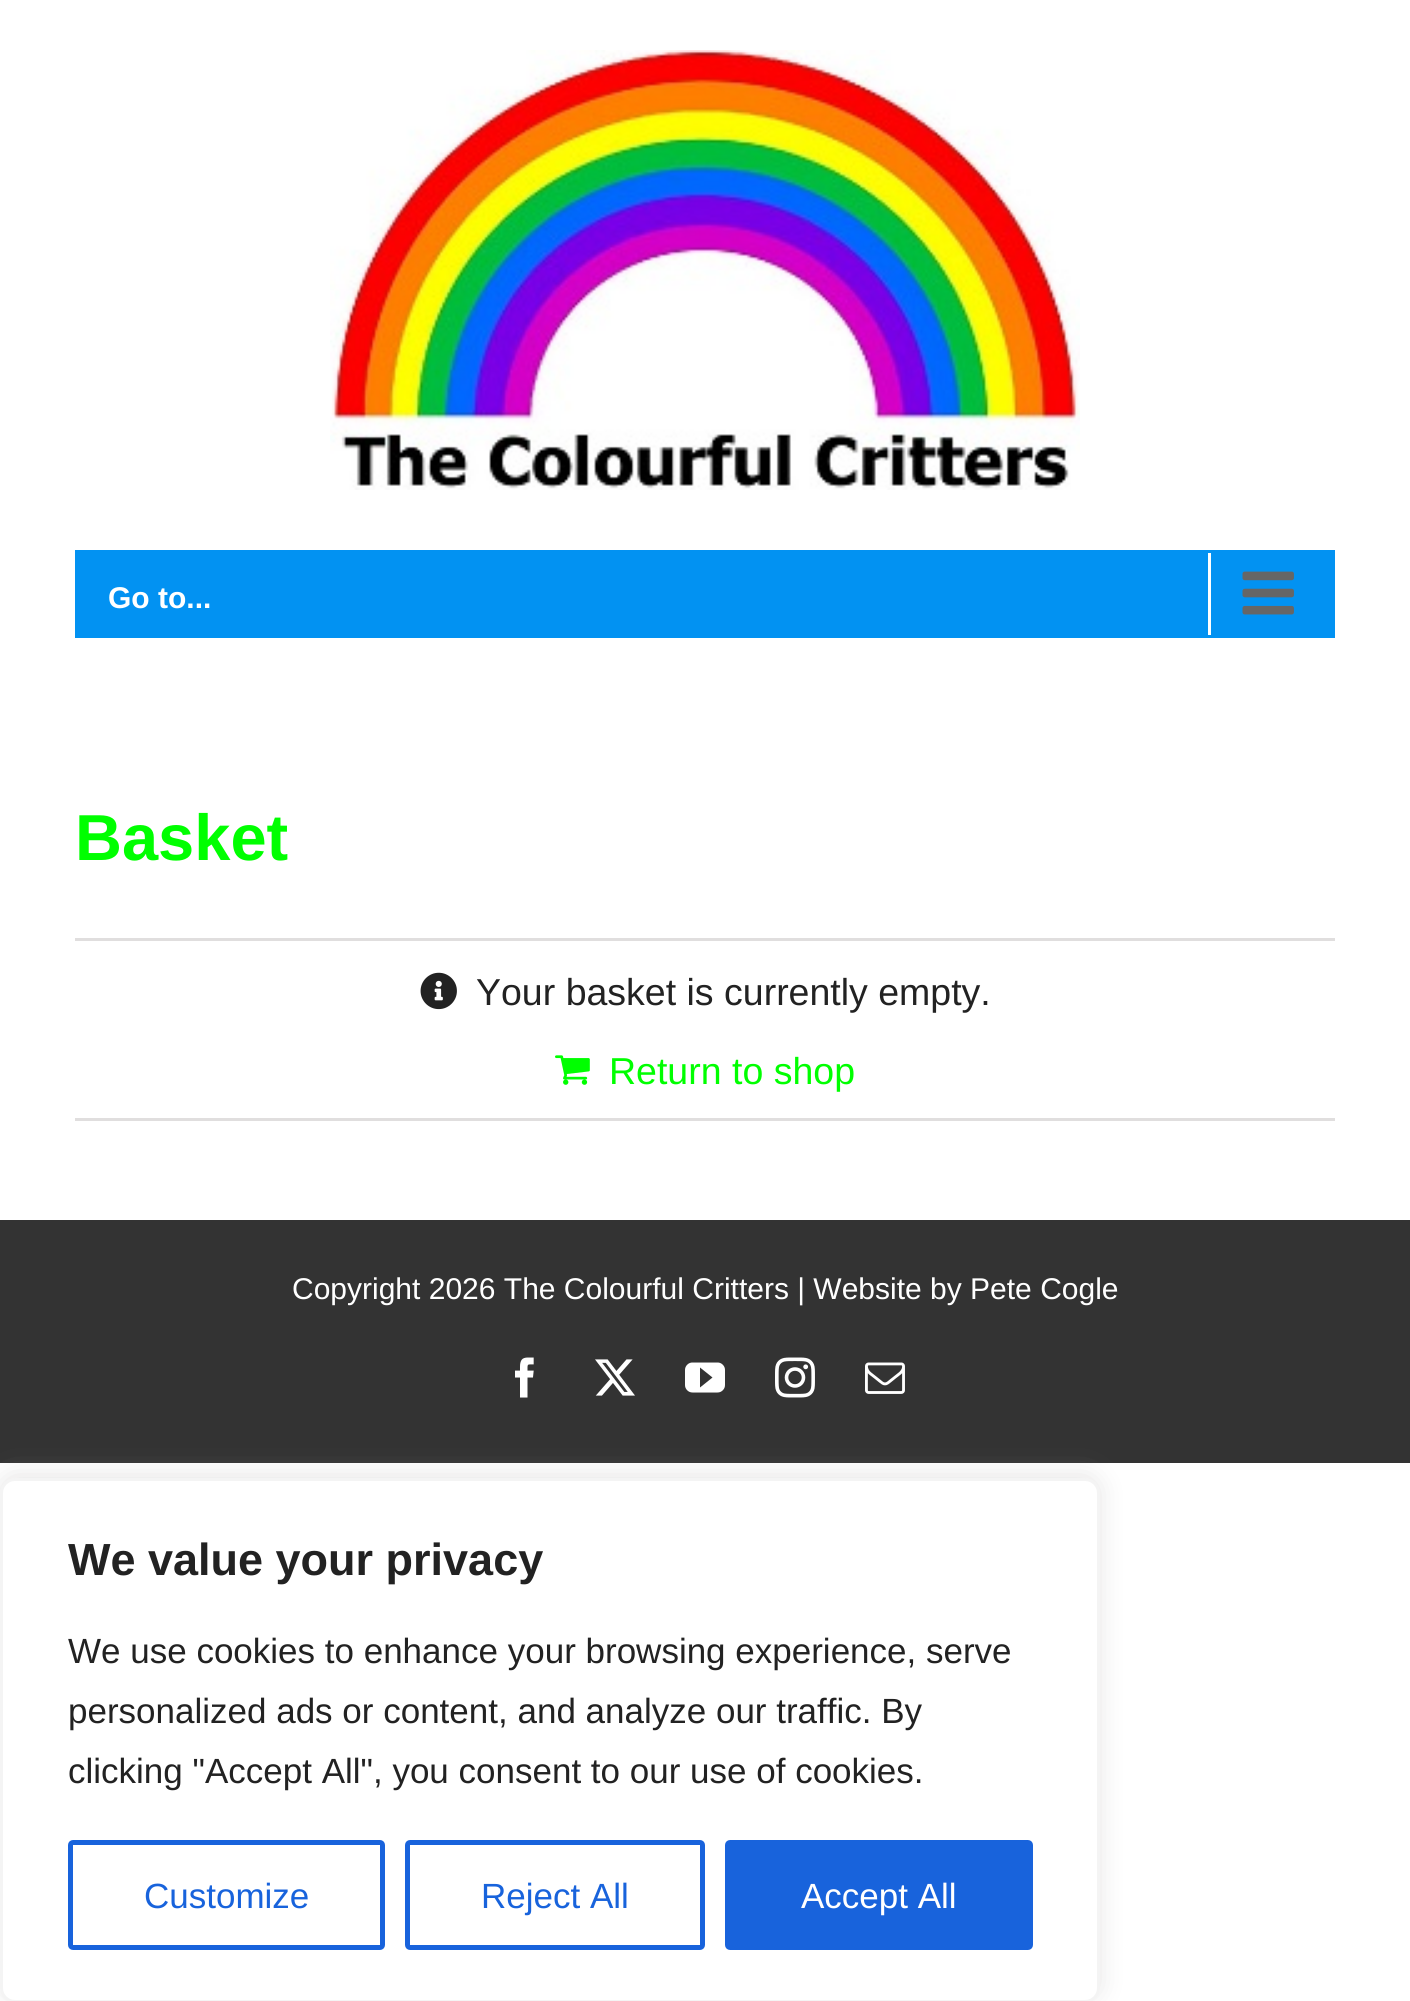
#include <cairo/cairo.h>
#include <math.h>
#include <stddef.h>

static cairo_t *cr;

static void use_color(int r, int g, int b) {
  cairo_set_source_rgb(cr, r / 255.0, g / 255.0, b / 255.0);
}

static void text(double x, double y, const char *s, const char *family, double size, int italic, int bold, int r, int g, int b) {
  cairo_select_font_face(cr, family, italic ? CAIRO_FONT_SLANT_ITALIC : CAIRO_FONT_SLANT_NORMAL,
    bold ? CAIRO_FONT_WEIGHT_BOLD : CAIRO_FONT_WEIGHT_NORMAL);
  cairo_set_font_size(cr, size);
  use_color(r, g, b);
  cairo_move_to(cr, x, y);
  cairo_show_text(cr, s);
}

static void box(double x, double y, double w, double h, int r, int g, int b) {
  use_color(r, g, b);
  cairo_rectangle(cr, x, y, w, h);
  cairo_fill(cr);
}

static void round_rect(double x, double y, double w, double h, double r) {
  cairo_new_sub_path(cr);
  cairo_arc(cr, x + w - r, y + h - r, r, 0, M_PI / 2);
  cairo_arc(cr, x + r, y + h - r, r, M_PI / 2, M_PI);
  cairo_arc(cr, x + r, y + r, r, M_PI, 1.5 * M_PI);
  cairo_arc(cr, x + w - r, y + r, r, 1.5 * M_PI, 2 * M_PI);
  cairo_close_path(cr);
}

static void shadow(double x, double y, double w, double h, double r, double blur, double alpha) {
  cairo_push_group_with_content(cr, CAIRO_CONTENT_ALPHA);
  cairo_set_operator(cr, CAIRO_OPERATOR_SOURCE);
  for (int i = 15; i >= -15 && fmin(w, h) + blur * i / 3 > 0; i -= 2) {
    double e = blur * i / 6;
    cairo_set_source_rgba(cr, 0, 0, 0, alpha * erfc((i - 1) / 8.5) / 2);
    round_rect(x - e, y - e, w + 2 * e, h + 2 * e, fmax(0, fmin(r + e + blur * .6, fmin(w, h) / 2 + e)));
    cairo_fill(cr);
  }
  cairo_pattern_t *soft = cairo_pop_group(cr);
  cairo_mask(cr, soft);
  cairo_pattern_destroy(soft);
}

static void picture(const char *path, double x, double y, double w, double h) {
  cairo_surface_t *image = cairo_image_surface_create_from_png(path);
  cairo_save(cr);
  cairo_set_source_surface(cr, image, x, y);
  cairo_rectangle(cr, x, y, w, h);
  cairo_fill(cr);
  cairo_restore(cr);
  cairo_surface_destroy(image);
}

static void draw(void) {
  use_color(255, 255, 255);
  cairo_paint(cr);
  picture("img_01.png", 330, 50, 750, 440);
  box(75, 550, 1260, 88, 2, 146, 242);
  box(1208, 553, 3, 82, 255, 255, 255);
  picture("img_02.png", 1242, 571, 52, 44);
  box(75, 938, 1260, 3, 224, 222, 222);
  picture("img_03.png", 420, 972, 37, 38);
  box(75, 1118, 1260, 3, 224, 222, 222);
  picture("img_04.png", 555, 1055, 35, 30);
  box(0, 1220, 1410, 243, 51, 51, 51);
  picture("img_05.png", 515, 1357, 19, 41);
  picture("img_06.png", 595, 1359, 40, 37);
  picture("img_07.png", 685, 1362, 40, 31);
  picture("img_08.png", 775, 1357, 40, 41);
  picture("img_09.png", 865, 1362, 40, 32);
  use_color(172, 171, 171);
  shadow(0, 1475, 1100, 525, 15, 12.5, 0.3);
  use_color(255, 255, 255);
  round_rect(1.5, 1479.5, 1097, 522, 13.5);
  cairo_fill_preserve(cr);
  use_color(244, 244, 244);
  cairo_set_line_width(cr, 3);
  cairo_stroke(cr);
  round_rect(70.5, 1842.5, 312, 105, 2.5);
  use_color(24, 99, 220);
  cairo_set_line_width(cr, 5);
  cairo_stroke(cr);
  round_rect(407.5, 1842.5, 295, 105, 2.5);
  cairo_stroke(cr);
  round_rect(727.5, 1842.5, 303, 105, 2.5);
  cairo_fill_preserve(cr);
  cairo_stroke(cr);
  text(108, 608, "Go to...", "Liberation Sans", 30, 0, 1, 255, 255, 255);
  text(75, 860, "Basket", "Liberation Sans", 65, 0, 1, 0, 255, 0);
  text(476, 1005, "Your basket is currently empty.", "Liberation Sans", 37.5, 0, 0, 34, 34, 34);
  text(609, 1084, "Return to shop", "Liberation Sans", 37.5, 0, 0, 0, 255, 0);
  text(292, 1299, "Copyright 2026 The Colourful Critters | Website by Pete Cogle", "Liberation Sans", 30, 0, 0, 255, 255, 255);
  text(68, 1575, "We value your privacy", "Liberation Sans", 45, 0, 1, 34, 34, 34);
  text(68, 1663, "We use cookies to enhance your browsing experience, serve", "Liberation Sans", 35, 0, 0, 34, 34, 34);
  text(68, 1723, "personalized ads or content, and analyze our traffic. By", "Liberation Sans", 35, 0, 0, 34, 34, 34);
  text(68, 1783, "clicking \"Accept All\", you consent to our use of cookies.", "Liberation Sans", 35, 0, 0, 34, 34, 34);
  text(144, 1908, "Customize", "Liberation Sans", 35, 0, 0, 24, 99, 220);
  text(481, 1908, "Reject All", "Liberation Sans", 35, 0, 0, 24, 99, 220);
  text(801, 1908, "Accept All", "Liberation Sans", 35, 0, 0, 255, 255, 255);
}

int main(void) {
  cairo_surface_t *surface = cairo_image_surface_create(CAIRO_FORMAT_RGB24, 1410, 2001);
  cr = cairo_create(surface);
  cairo_font_options_t *options = cairo_font_options_create();
  cairo_font_options_set_hint_metrics(options, CAIRO_HINT_METRICS_OFF);
  cairo_font_options_set_hint_style(options, CAIRO_HINT_STYLE_NONE);
  cairo_set_font_options(cr, options);
  cairo_set_miter_limit(cr, 4);
  draw();
  cairo_surface_write_to_png(surface, "out.png");
  cairo_font_options_destroy(options);
  cairo_destroy(cr);
  cairo_surface_destroy(surface);
  return 0;
}
